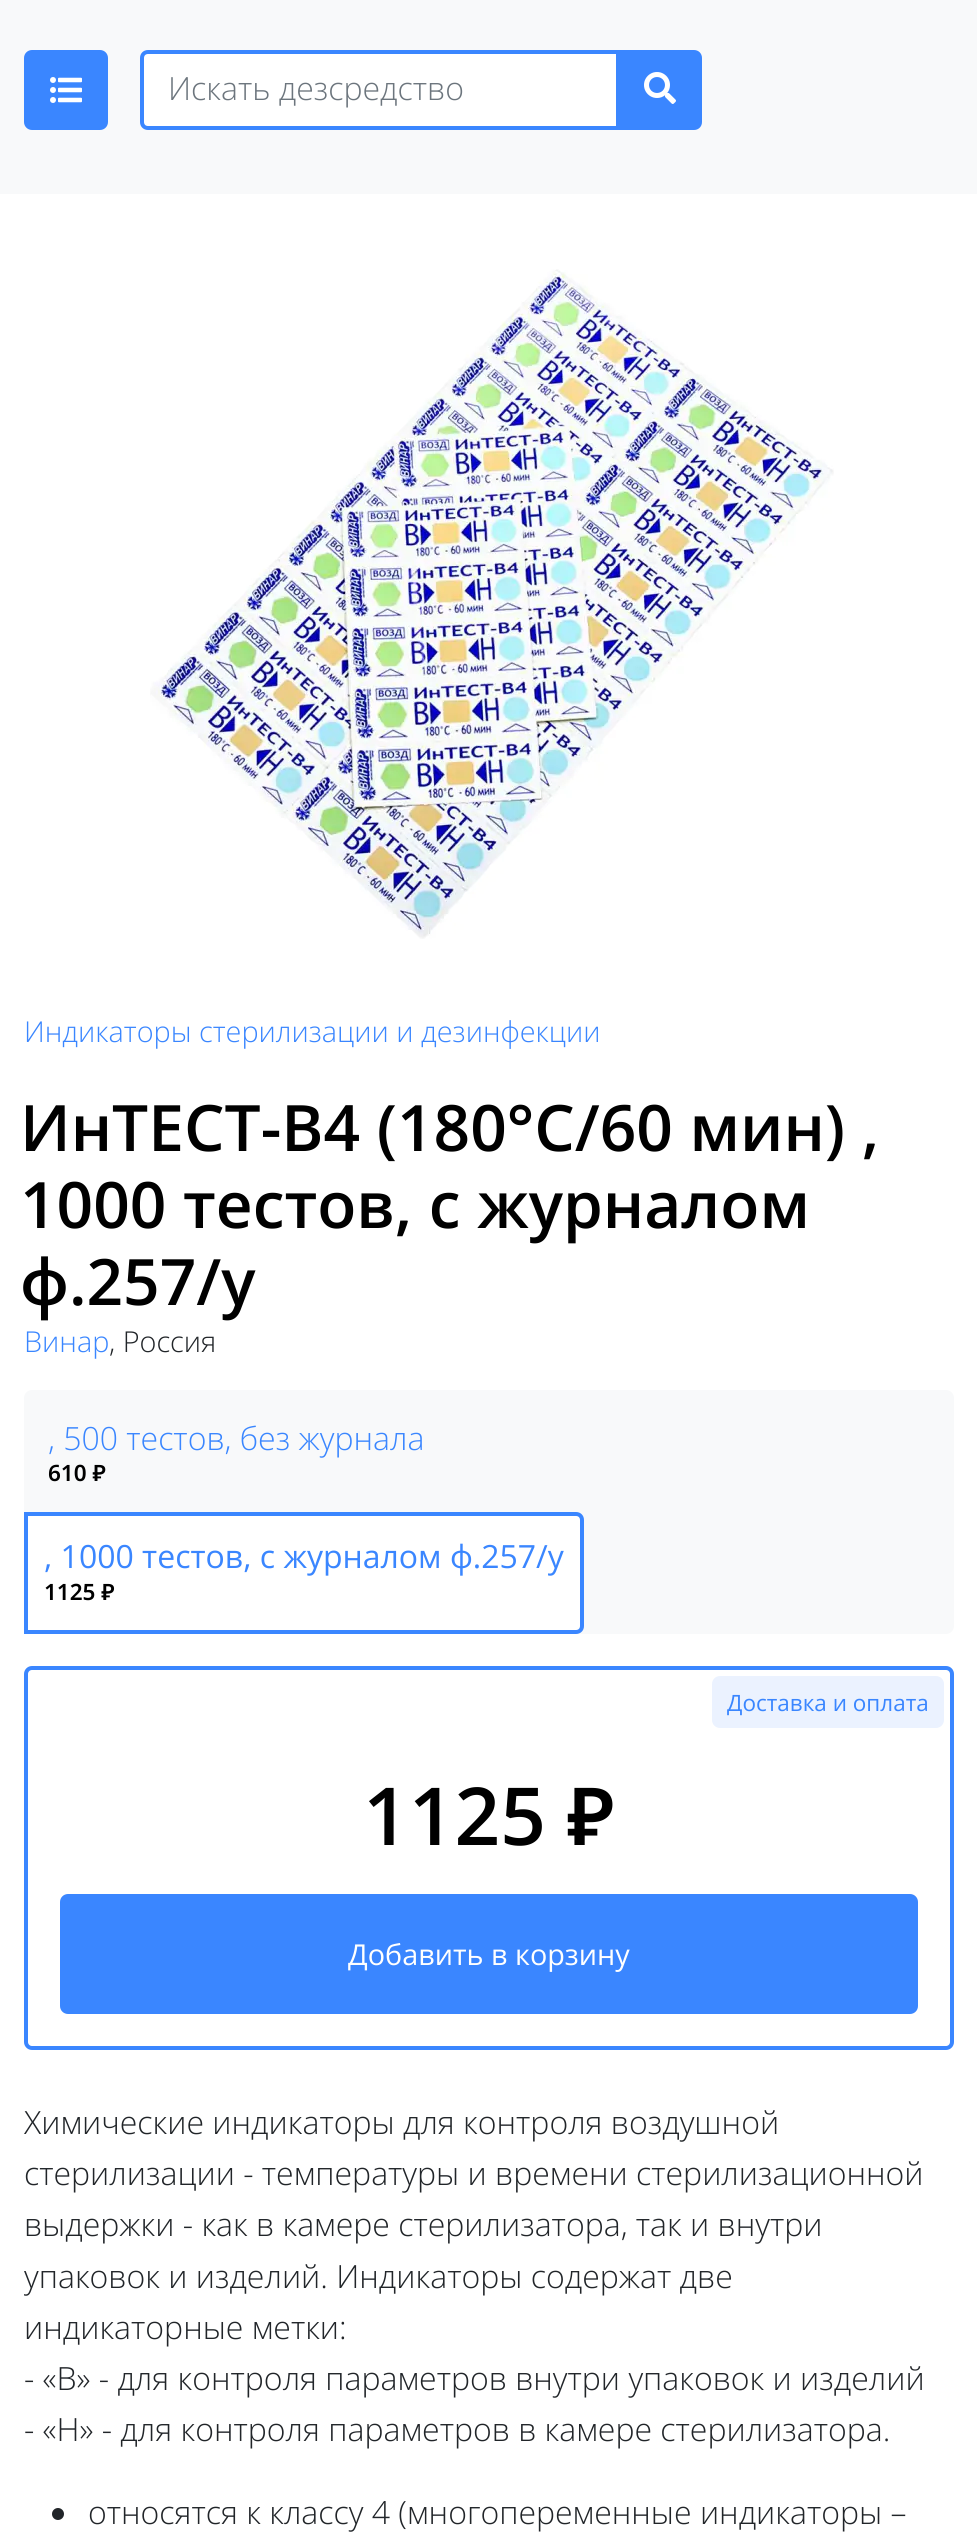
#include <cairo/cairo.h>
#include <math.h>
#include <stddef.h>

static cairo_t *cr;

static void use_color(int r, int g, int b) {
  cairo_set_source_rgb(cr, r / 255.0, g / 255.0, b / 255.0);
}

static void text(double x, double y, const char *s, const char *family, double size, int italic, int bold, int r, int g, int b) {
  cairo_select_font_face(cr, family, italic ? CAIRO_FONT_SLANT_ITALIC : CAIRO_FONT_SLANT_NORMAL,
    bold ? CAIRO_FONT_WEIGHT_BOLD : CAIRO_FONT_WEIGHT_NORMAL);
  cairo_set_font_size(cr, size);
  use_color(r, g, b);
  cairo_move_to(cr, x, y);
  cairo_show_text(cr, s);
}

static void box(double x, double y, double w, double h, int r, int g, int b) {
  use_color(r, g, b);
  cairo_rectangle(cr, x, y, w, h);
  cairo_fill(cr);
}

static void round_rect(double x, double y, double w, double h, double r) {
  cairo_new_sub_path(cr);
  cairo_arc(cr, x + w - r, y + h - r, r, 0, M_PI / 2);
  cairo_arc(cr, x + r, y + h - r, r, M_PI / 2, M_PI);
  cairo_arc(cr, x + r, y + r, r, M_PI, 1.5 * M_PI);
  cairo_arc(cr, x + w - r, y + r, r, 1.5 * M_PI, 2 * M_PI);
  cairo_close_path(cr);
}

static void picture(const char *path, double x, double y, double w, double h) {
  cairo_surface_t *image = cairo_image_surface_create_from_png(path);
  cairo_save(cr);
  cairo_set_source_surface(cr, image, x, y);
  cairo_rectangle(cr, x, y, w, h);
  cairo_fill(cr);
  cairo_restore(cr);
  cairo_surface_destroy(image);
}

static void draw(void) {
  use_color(255, 255, 255);
  cairo_paint(cr);
  box(0, 0, 977, 194, 248, 249, 250);
  use_color(58, 134, 255);
  round_rect(25, 51, 82, 78, 7);
  cairo_fill_preserve(cr);
  cairo_stroke(cr);
  picture("img_01.png", 50, 77, 32, 26);
  use_color(255, 255, 255);
  cairo_new_path(cr);
  cairo_move_to(cr, 148, 52);
  cairo_line_to(cr, 618, 52);
  cairo_line_to(cr, 618, 128);
  cairo_line_to(cr, 148, 128);
  cairo_curve_to(cr, 144.5, 128, 142, 125.5, 142, 122);
  cairo_line_to(cr, 142, 58);
  cairo_curve_to(cr, 142, 54.5, 144.5, 52, 148, 52);
  cairo_close_path(cr);
  cairo_fill_preserve(cr);
  use_color(58, 134, 255);
  cairo_set_line_width(cr, 4);
  cairo_stroke(cr);
  cairo_new_path(cr);
  cairo_move_to(cr, 619, 51);
  cairo_line_to(cr, 694, 51);
  cairo_curve_to(cr, 698, 51, 701, 54, 701, 58);
  cairo_line_to(cr, 701, 122);
  cairo_curve_to(cr, 701, 126, 698, 129, 694, 129);
  cairo_line_to(cr, 619, 129);
  cairo_close_path(cr);
  cairo_fill_preserve(cr);
  cairo_set_line_width(cr, 2);
  cairo_stroke(cr);
  picture("img_02.png", 644, 72, 32, 32);
  picture("img_03.png", 150, 269, 684, 670);
  use_color(248, 249, 250);
  round_rect(24, 1390, 930, 244, 8);
  cairo_fill(cr);
  use_color(255, 255, 255);
  cairo_new_path(cr);
  cairo_move_to(cr, 26, 1514);
  cairo_line_to(cr, 576, 1514);
  cairo_curve_to(cr, 579.5, 1514, 582, 1516.5, 582, 1520);
  cairo_line_to(cr, 582, 1626);
  cairo_curve_to(cr, 582, 1629.5, 579.5, 1632, 576, 1632);
  cairo_line_to(cr, 26, 1632);
  cairo_close_path(cr);
  cairo_fill_preserve(cr);
  use_color(58, 134, 255);
  cairo_set_line_width(cr, 4);
  cairo_stroke(cr);
  round_rect(26, 1668, 926, 380, 6);
  cairo_stroke(cr);
  use_color(235, 242, 255);
  round_rect(712, 1676, 232, 52, 8);
  cairo_fill(cr);
  use_color(58, 134, 255);
  round_rect(61, 1895, 856, 118, 7);
  cairo_fill_preserve(cr);
  cairo_set_line_width(cr, 2);
  cairo_stroke(cr);
  use_color(33, 37, 41);
  cairo_arc(cr, 58, 2514, 6, 0, 2 * M_PI);
  cairo_fill(cr);
  text(168, 100, "Искать дезсредство", "Open Sans Light", 32, 0, 0, 108, 117, 125);
  text(24, 1042, "Индикаторы стерилизации и дезинфекции", "Open Sans Light", 28.8, 0, 0, 58, 134, 255);
  text(20, 1151, "ИнТЕСТ-В4 (180°С/60 мин) ,", "Open Sans SemiBold", 64, 0, 0, 0, 0, 0);
  text(20, 1228, "1000 тестов, с журналом", "Open Sans SemiBold", 64, 0, 0, 0, 0, 0);
  text(20, 1305, "ф.257/у", "Open Sans SemiBold", 64, 0, 0, 0, 0, 0);
  text(24, 1352, "Винар", "Open Sans Light", 28.8, 0, 0, 58, 134, 255);
  text(109, 1352, ", Россия", "Open Sans Light", 28.8, 0, 0, 33, 37, 41);
  text(48, 1450, ", 500 тестов, без журнала", "Open Sans Light", 32, 0, 0, 58, 134, 255);
  text(48, 1481, "610 ₽", "Noto Sans SemiBold", 22.5, 0, 0, 0, 0, 0);
  text(44, 1568, ", 1000 тестов, с журналом ф.257/у", "Open Sans", 32, 0, 0, 58, 134, 255);
  text(44, 1600, "1125 ₽", "Noto Sans SemiBold", 22.5, 0, 0, 0, 0, 0);
  text(727, 1711, "Доставка и оплата", "Open Sans", 22.5, 0, 0, 58, 134, 255);
  text(363, 1845, "1125", "Open Sans SemiBold", 80, 0, 0, 0, 0, 0);
  text(567, 1845, "₽", "Noto Sans SemiBold", 80, 0, 0, 0, 0, 0);
  text(348, 1965, "Добавить в корзину", "Open Sans", 28.8, 0, 0, 255, 255, 255);
  text(24, 2134, "Химические индикаторы для контроля воздушной", "Open Sans Light", 32, 0, 0, 33, 37, 41);
  text(24, 2185, "стерилизации - температуры и времени стерилизационной", "Open Sans Light", 32, 0, 0, 33, 37, 41);
  text(24, 2236, "выдержки - как в камере стерилизатора, так и внутри", "Open Sans Light", 32, 0, 0, 33, 37, 41);
  text(24, 2288, "упаковок и изделий. Индикаторы содержат две", "Open Sans Light", 32, 0, 0, 33, 37, 41);
  text(24, 2339, "индикаторные метки:", "Open Sans Light", 32, 0, 0, 33, 37, 41);
  text(24, 2390, "- «В» - для контроля параметров внутри упаковок и изделий", "Open Sans Light", 32, 0, 0, 33, 37, 41);
  text(24, 2441, "- «Н» - для контроля параметров в камере стерилизатора.", "Open Sans Light", 32, 0, 0, 33, 37, 41);
  text(88, 2524, "относятся к классу 4 (многопеременные индикаторы –", "Open Sans Light", 32, 0, 0, 33, 37, 41);
}

int main(void) {
  cairo_surface_t *surface = cairo_image_surface_create(CAIRO_FORMAT_RGB24, 977, 2532);
  cr = cairo_create(surface);
  cairo_font_options_t *options = cairo_font_options_create();
  cairo_font_options_set_hint_metrics(options, CAIRO_HINT_METRICS_OFF);
  cairo_font_options_set_hint_style(options, CAIRO_HINT_STYLE_NONE);
  cairo_set_font_options(cr, options);
  cairo_set_miter_limit(cr, 4);
  draw();
  cairo_surface_write_to_png(surface, "out.png");
  cairo_font_options_destroy(options);
  cairo_destroy(cr);
  cairo_surface_destroy(surface);
  return 0;
}
